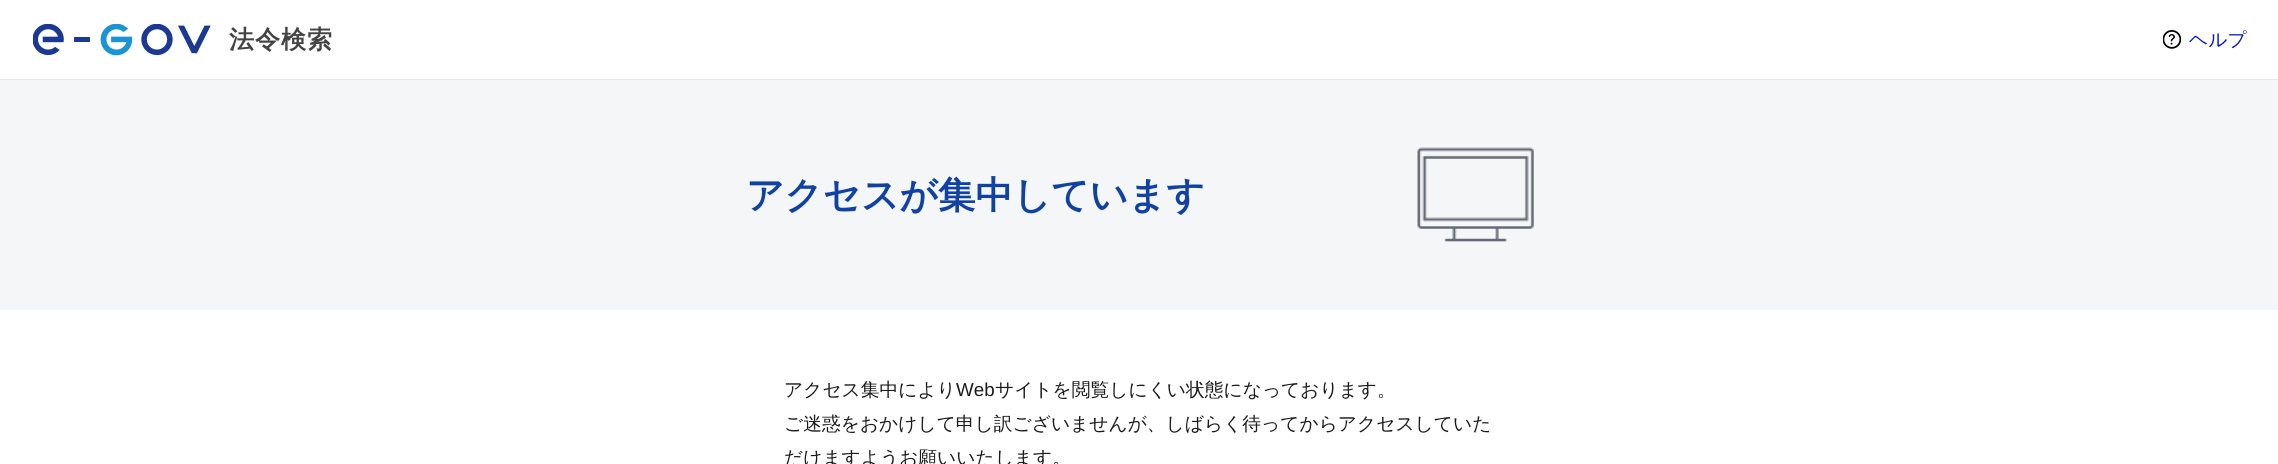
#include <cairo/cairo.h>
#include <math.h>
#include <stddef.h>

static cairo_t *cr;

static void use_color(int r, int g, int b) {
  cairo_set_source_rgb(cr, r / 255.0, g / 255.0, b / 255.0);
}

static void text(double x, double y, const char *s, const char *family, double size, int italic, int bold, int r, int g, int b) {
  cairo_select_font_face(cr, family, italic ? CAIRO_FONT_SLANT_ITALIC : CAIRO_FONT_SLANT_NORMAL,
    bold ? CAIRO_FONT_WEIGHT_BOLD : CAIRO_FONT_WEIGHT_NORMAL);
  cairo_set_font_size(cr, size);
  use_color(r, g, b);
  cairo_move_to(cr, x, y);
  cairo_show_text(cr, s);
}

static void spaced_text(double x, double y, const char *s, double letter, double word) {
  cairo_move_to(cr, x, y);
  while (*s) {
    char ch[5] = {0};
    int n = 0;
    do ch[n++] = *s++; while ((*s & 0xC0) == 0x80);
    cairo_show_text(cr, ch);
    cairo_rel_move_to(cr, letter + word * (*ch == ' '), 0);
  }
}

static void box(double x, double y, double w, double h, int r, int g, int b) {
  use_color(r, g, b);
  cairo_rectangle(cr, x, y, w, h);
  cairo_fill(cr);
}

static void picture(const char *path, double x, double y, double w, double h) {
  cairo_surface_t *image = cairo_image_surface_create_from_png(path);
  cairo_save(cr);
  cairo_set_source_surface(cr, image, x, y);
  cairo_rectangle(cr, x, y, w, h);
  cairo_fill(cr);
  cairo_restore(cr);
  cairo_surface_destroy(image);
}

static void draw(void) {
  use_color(255, 255, 255);
  cairo_paint(cr);
  box(0, 79, 2278, 1, 230, 230, 230);
  picture("img_01.png", 33, 24, 178, 32);
  picture("img_02.png", 2163, 30, 18, 19);
  box(0, 80, 2278, 230, 245, 246, 248);
  picture("img_03.png", 1417, 147, 117, 95);
  cairo_select_font_face(cr, "WenQuanYi Zen Hei", CAIRO_FONT_SLANT_NORMAL, CAIRO_FONT_WEIGHT_BOLD);
  cairo_set_font_size(cr, 25);
  use_color(68, 68, 68);
  spaced_text(229, 48, "法令検索", 1, 0);
  text(2189, 46, "ヘルプ", "WenQuanYi Zen Hei Medium", 18.75, 0, 0, 0, 23, 193);
  text(746, 208, "アクセスが集中しています", "WenQuanYi Zen Hei", 37.5, 0, 1, 16, 66, 164);
  text(784, 396, "アクセス集中により", "WenQuanYi Zen Hei Medium", 18.75, 0, 0, 26, 26, 28);
  text(956, 396, "Web", "Liberation Sans", 18.75, 0, 0, 26, 26, 28);
  text(995, 396, "サイトを閲覧しにくい状態になっております。", "WenQuanYi Zen Hei Medium", 18.75, 0, 0, 26, 26, 28);
  text(784, 430, "ご迷惑をおかけして申し訳ございませんが、しばらく待ってからアクセスしていた", "WenQuanYi Zen Hei Medium", 18.75, 0, 0, 26, 26, 28);
  text(784, 464, "だけますようお願いいたします。", "WenQuanYi Zen Hei Medium", 18.75, 0, 0, 26, 26, 28);
}

int main(void) {
  cairo_surface_t *surface = cairo_image_surface_create(CAIRO_FORMAT_RGB24, 2278, 464);
  cr = cairo_create(surface);
  cairo_font_options_t *options = cairo_font_options_create();
  cairo_font_options_set_hint_metrics(options, CAIRO_HINT_METRICS_OFF);
  cairo_font_options_set_hint_style(options, CAIRO_HINT_STYLE_NONE);
  cairo_set_font_options(cr, options);
  cairo_set_miter_limit(cr, 4);
  draw();
  cairo_surface_write_to_png(surface, "out.png");
  cairo_font_options_destroy(options);
  cairo_destroy(cr);
  cairo_surface_destroy(surface);
  return 0;
}
